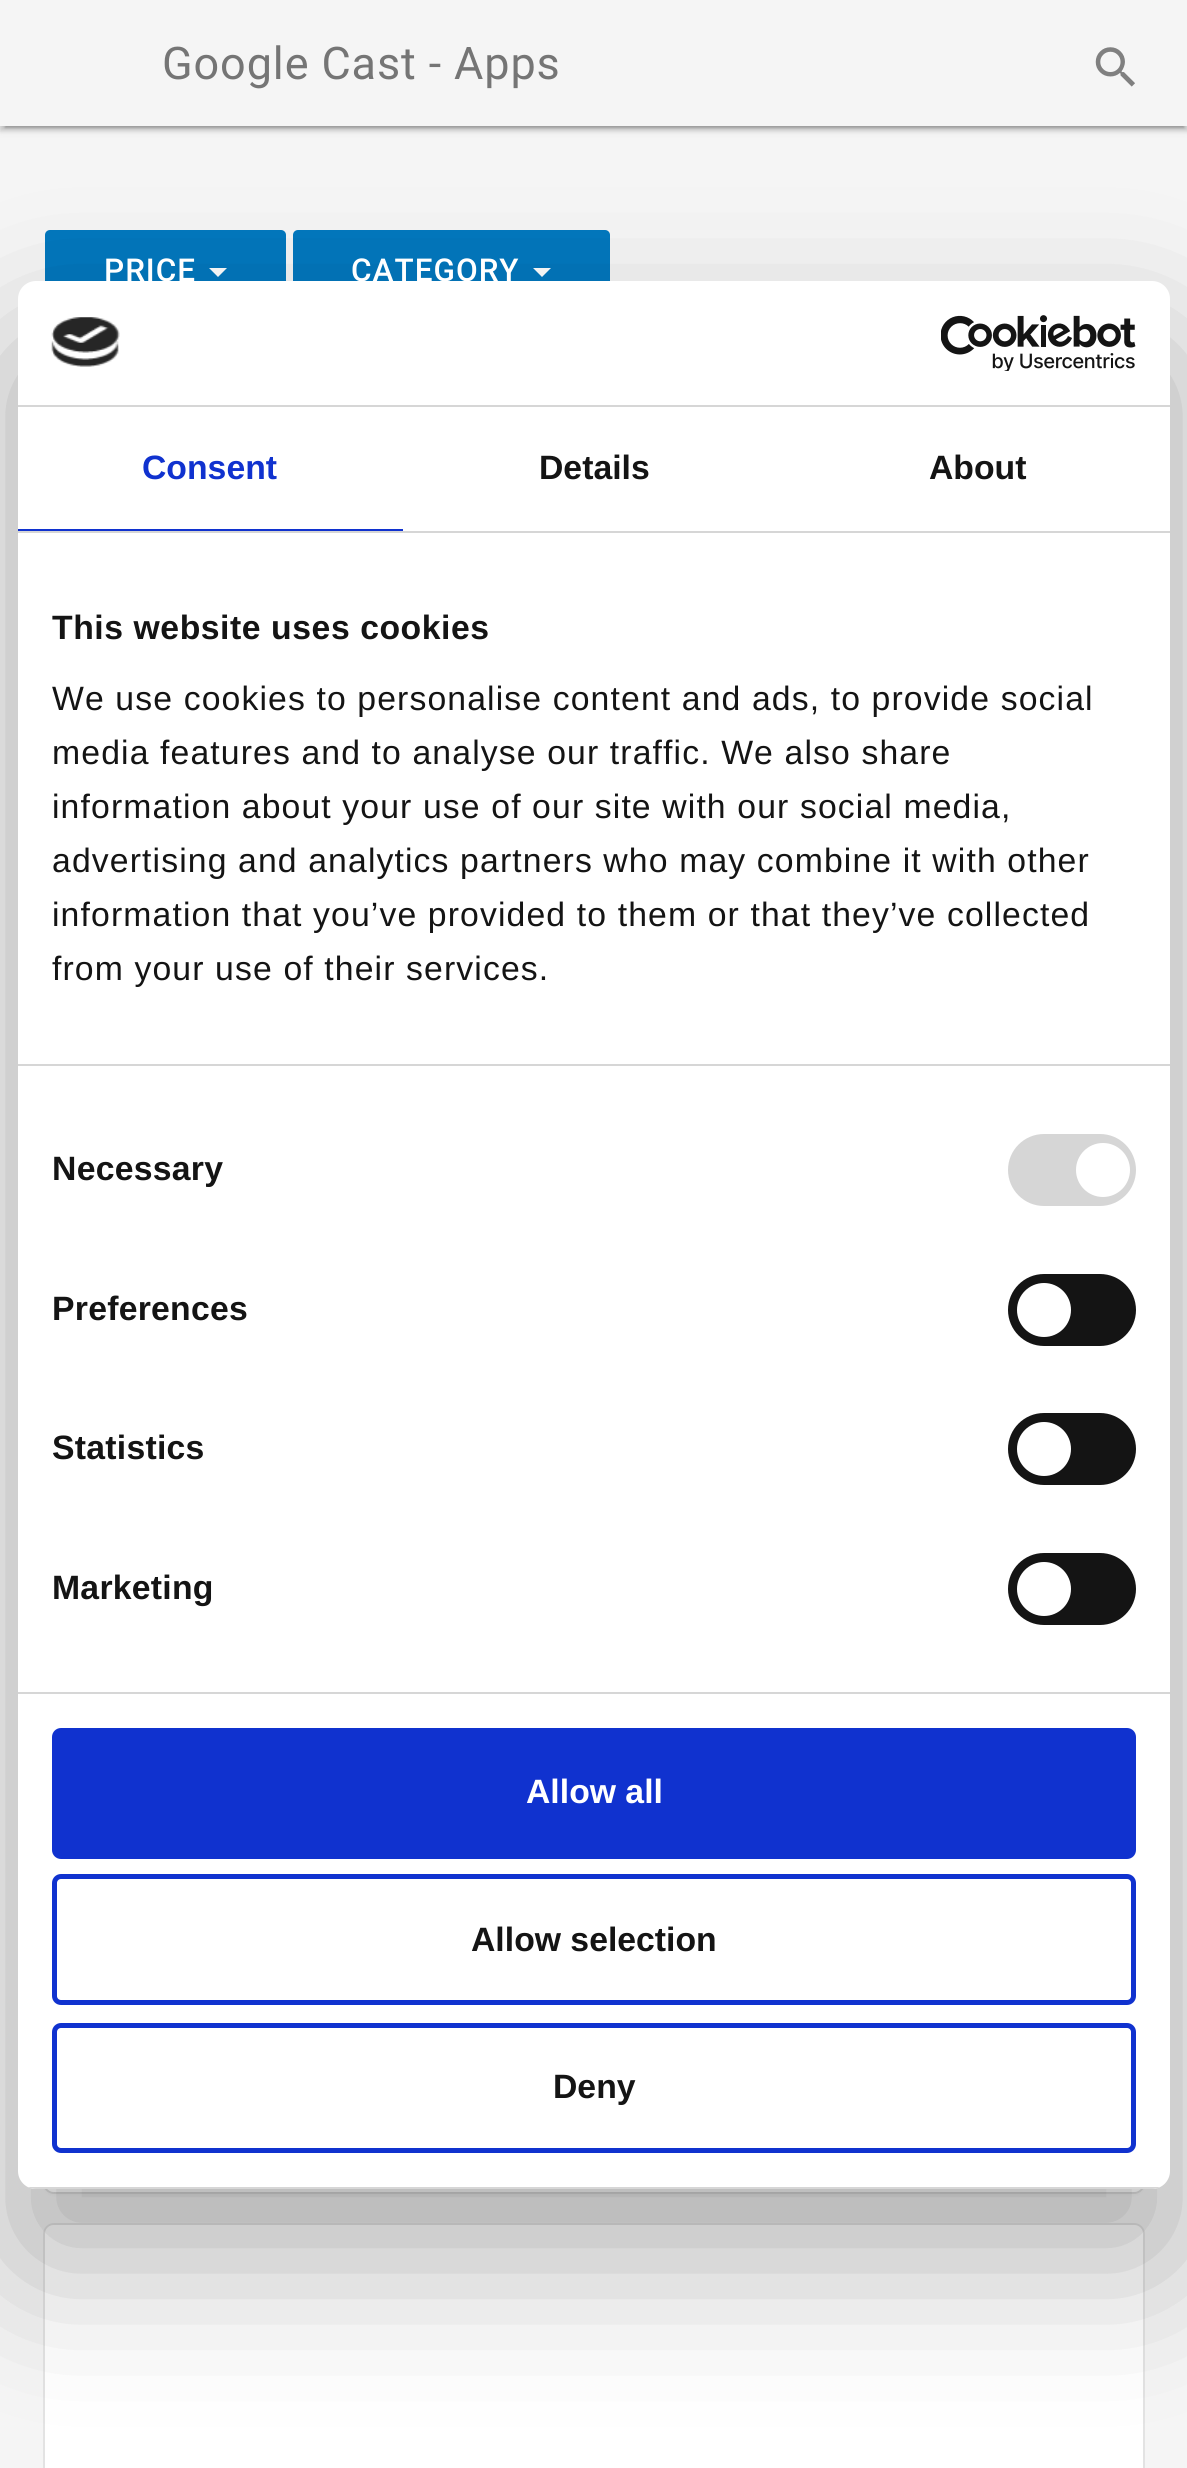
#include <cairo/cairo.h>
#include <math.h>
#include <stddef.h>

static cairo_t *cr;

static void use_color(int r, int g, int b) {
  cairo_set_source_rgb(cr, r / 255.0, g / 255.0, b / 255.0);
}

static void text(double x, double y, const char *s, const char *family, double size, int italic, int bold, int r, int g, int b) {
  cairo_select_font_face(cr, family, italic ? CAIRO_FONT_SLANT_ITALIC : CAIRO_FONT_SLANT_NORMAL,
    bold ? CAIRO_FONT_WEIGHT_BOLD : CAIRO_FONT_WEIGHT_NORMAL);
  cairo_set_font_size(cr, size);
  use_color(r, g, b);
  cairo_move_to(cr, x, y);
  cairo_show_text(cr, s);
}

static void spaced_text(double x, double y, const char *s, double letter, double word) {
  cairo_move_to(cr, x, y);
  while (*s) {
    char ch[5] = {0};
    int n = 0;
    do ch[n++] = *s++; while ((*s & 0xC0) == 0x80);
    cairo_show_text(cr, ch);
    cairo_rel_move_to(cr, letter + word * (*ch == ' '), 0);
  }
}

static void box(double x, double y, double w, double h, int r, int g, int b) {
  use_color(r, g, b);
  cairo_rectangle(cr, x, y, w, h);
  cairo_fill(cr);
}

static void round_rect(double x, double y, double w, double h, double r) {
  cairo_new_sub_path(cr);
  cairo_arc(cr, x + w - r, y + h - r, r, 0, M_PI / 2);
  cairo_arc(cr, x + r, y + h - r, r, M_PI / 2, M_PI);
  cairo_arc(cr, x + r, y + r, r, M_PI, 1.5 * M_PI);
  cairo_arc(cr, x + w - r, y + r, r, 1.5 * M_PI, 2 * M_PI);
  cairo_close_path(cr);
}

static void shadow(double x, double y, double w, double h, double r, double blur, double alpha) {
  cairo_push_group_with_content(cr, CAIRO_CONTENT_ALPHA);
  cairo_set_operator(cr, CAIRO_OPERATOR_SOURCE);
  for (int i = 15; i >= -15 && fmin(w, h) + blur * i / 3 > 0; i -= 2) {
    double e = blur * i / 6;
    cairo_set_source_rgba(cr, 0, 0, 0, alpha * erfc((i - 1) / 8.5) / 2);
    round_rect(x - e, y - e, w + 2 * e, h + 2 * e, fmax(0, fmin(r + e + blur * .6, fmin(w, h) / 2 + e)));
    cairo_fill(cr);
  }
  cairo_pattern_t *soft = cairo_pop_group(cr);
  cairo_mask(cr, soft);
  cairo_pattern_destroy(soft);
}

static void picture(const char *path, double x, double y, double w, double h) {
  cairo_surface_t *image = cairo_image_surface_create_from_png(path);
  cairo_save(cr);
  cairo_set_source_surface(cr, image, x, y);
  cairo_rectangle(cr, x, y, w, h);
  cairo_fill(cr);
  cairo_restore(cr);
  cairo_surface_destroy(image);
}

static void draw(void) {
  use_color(245, 245, 245);
  cairo_paint(cr);
  use_color(0, 0, 0);
  shadow(0, 2, 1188, 126, 0, 5.5, 0.12);
  shadow(5, 11, 1179, 117, 0, 1, 0.2);
  shadow(0, 5, 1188, 126, 0, 2, 0.14);
  box(0, 0, 1187, 126, 245, 245, 245);
  picture("img_01.png", 1095, 47, 40, 40);
  use_color(2, 119, 189);
  round_rect(45, 230, 241, 81, 5);
  cairo_fill(cr);
  use_color(255, 255, 255);
  cairo_new_path(cr);
  cairo_move_to(cr, 209, 268);
  cairo_line_to(cr, 227, 268);
  cairo_line_to(cr, 218, 277);
  cairo_close_path(cr);
  cairo_fill(cr);
  use_color(2, 119, 189);
  round_rect(293, 230, 317, 81, 5);
  cairo_fill(cr);
  use_color(255, 255, 255);
  cairo_new_path(cr);
  cairo_move_to(cr, 533, 268);
  cairo_line_to(cr, 551, 268);
  cairo_line_to(cr, 542, 277);
  cairo_close_path(cr);
  cairo_fill(cr);
  round_rect(44, 1974, 1100, 219, 10);
  use_color(227, 227, 227);
  cairo_stroke(cr);
  use_color(0, 0, 0);
  shadow(45, 1978, 1098, 216, 9, 2, 0.05);
  use_color(255, 255, 255);
  round_rect(45, 1976, 1098, 216, 9);
  cairo_fill(cr);
  round_rect(44, 2224, 1100, 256, 10);
  use_color(227, 227, 227);
  cairo_stroke(cr);
  use_color(255, 255, 255);
  cairo_new_path(cr);
  cairo_move_to(cr, 54, 2225);
  cairo_line_to(cr, 1134, 2225);
  cairo_curve_to(cr, 1139, 2225, 1143, 2229, 1143, 2234);
  cairo_line_to(cr, 1143, 2468);
  cairo_line_to(cr, 45, 2468);
  cairo_line_to(cr, 45, 2234);
  cairo_curve_to(cr, 45, 2229, 49, 2225, 54, 2225);
  cairo_close_path(cr);
  cairo_fill(cr);
  use_color(0, 0, 0);
  shadow(18, 353, 1152, 1908, 18, 76.5, 0.3);
  use_color(255, 255, 255);
  round_rect(18, 281, 1152, 1908, 18);
  cairo_fill(cr);
  box(18, 405, 1152, 2, 214, 214, 214);
  picture("img_02.png", 51, 317, 69, 50);
  picture("img_03.png", 941, 315, 195, 56);
  box(18, 531, 1152, 2, 214, 214, 214);
  box(18, 529, 385, 2, 16, 50, 207);
  box(18, 1064, 1152, 2, 214, 214, 214);
  box(18, 1692, 1152, 2, 214, 214, 214);
  round_rect(1008, 1134, 128, 72, 36);
  cairo_fill(cr);
  use_color(255, 255, 255);
  cairo_arc(cr, 1103, 1170, 27, 0, 2 * M_PI);
  cairo_fill(cr);
  use_color(20, 20, 20);
  round_rect(1008, 1274, 128, 72, 36);
  cairo_fill(cr);
  use_color(255, 255, 255);
  cairo_arc(cr, 1044, 1310, 27, 0, 2 * M_PI);
  cairo_fill(cr);
  use_color(20, 20, 20);
  round_rect(1008, 1413, 128, 72, 36);
  cairo_fill(cr);
  use_color(255, 255, 255);
  cairo_arc(cr, 1044, 1449, 27, 0, 2 * M_PI);
  cairo_fill(cr);
  use_color(20, 20, 20);
  round_rect(1008, 1553, 128, 72, 36);
  cairo_fill(cr);
  use_color(255, 255, 255);
  cairo_arc(cr, 1044, 1589, 27, 0, 2 * M_PI);
  cairo_fill(cr);
  cairo_save(cr);
  round_rect(18, 281, 1152, 1908, 18);
  cairo_clip(cr);
  box(28, 2187, 1132, 2, 214, 214, 214);
  cairo_restore(cr);
  use_color(16, 50, 207);
  round_rect(54.5, 1730.5, 1079, 126, 6.5);
  cairo_fill_preserve(cr);
  cairo_set_line_width(cr, 5);
  cairo_stroke(cr);
  round_rect(54.5, 1876.5, 1079, 126, 6.5);
  cairo_stroke(cr);
  round_rect(54.5, 2025.5, 1079, 125, 6.5);
  cairo_stroke(cr);
  cairo_select_font_face(cr, "Roboto", CAIRO_FONT_SLANT_NORMAL, CAIRO_FONT_WEIGHT_NORMAL);
  cairo_set_font_size(cr, 45);
  use_color(117, 117, 117);
  spaced_text(162, 79, "Google Cast - Apps", 0.9, 0);
  cairo_select_font_face(cr, "Roboto Medium", CAIRO_FONT_SLANT_NORMAL, CAIRO_FONT_WEIGHT_NORMAL);
  cairo_set_font_size(cr, 31.5);
  use_color(255, 255, 255);
  spaced_text(104, 281, "PRICE", 1, 0);
  spaced_text(351, 281, "CATEGORY", 1, 0);
  text(142, 479, "Consent", "Liberation Sans", 33.75, 0, 1, 16, 50, 207);
  text(539, 479, "Details", "Liberation Sans", 33.75, 0, 1, 20, 20, 20);
  text(929, 479, "About", "Liberation Sans", 33.75, 0, 1, 20, 20, 20);
  spaced_text(52, 639, "This website uses cookies", 0.55, 0);
  cairo_select_font_face(cr, "Liberation Sans", CAIRO_FONT_SLANT_NORMAL, CAIRO_FONT_WEIGHT_NORMAL);
  spaced_text(52, 710, "We use cookies to personalise content and ads, to provide social", 1.12, 0);
  spaced_text(52, 764, "media features and to analyse our traffic. We also share", 1.12, 0);
  spaced_text(52, 818, "information about your use of our site with our social media,", 1.12, 0);
  spaced_text(52, 872, "advertising and analytics partners who may combine it with other", 1.12, 0);
  spaced_text(52, 926, "information that you’ve provided to them or that they’ve collected", 1.12, 0);
  spaced_text(52, 980, "from your use of their services.", 1.12, 0);
  cairo_select_font_face(cr, "Liberation Sans", CAIRO_FONT_SLANT_NORMAL, CAIRO_FONT_WEIGHT_BOLD);
  spaced_text(52, 1180, "Necessary", 0.25, 0);
  spaced_text(52, 1320, "Preferences", 0.25, 0);
  spaced_text(52, 1459, "Statistics", 0.25, 0);
  spaced_text(52, 1599, "Marketing", 0.25, 0);
  text(526, 1803, "Allow all", "Liberation Sans", 33.75, 0, 1, 255, 255, 255);
  text(471, 1951, "Allow selection", "Liberation Sans", 33.75, 0, 1, 20, 20, 20);
  text(553, 2098, "Deny", "Liberation Sans", 33.75, 0, 1, 20, 20, 20);
}

int main(void) {
  cairo_surface_t *surface = cairo_image_surface_create(CAIRO_FORMAT_RGB24, 1187, 2468);
  cr = cairo_create(surface);
  cairo_font_options_t *options = cairo_font_options_create();
  cairo_font_options_set_hint_metrics(options, CAIRO_HINT_METRICS_OFF);
  cairo_font_options_set_hint_style(options, CAIRO_HINT_STYLE_NONE);
  cairo_set_font_options(cr, options);
  cairo_set_miter_limit(cr, 4);
  draw();
  cairo_surface_write_to_png(surface, "out.png");
  cairo_font_options_destroy(options);
  cairo_destroy(cr);
  cairo_surface_destroy(surface);
  return 0;
}
